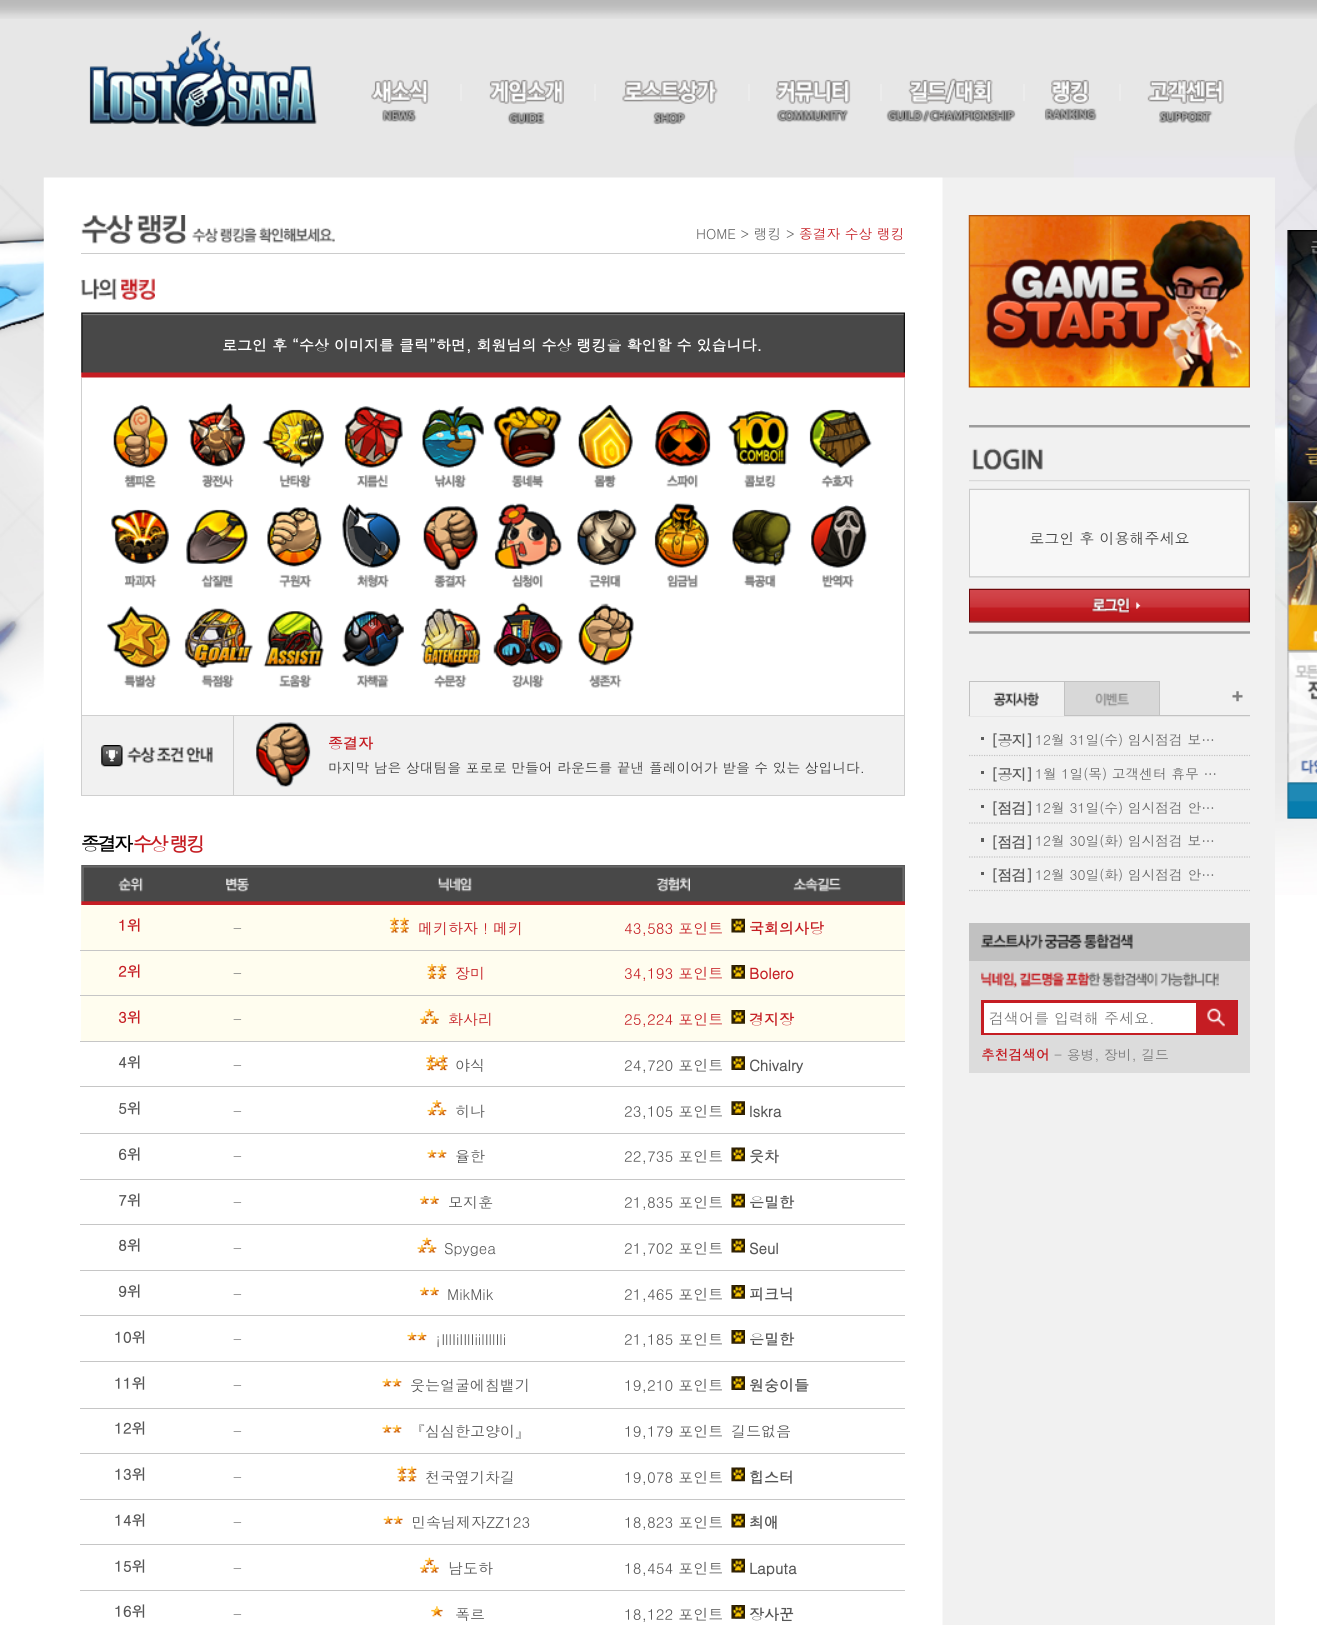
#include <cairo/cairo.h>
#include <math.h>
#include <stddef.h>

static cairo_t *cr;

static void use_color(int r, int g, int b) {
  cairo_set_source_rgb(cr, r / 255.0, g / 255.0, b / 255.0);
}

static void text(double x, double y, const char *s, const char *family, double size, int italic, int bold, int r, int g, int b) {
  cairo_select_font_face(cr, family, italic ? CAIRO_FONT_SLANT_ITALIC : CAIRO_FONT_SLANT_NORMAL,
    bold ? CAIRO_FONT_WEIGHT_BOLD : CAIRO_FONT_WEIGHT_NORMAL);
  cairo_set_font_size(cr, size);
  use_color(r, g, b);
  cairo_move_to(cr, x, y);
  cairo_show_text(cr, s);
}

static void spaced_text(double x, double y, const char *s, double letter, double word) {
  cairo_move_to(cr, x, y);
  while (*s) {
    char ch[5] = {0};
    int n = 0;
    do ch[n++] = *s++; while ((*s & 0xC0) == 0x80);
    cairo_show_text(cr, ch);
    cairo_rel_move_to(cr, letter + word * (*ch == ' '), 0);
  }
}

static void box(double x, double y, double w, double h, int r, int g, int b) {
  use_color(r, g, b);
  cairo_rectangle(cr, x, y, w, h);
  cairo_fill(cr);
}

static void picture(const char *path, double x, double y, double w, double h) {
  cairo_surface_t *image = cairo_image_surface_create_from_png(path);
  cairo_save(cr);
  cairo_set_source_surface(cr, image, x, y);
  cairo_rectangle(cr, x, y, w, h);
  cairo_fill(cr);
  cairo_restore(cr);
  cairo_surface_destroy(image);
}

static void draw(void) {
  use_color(255, 255, 255);
  cairo_paint(cr);
  picture("img_01.png", 0, 0, 1317, 895);
  picture("img_02.png", 0, 0, 1317, 19);
  picture("img_03.png", 89, 30, 228, 97);
  picture("img_04.png", 371, 79, 58, 44);
  box(460, 84, 2, 17, 236, 236, 236);
  picture("img_05.png", 489, 79, 75, 46);
  box(594, 84, 2, 17, 236, 236, 236);
  picture("img_06.png", 622, 79, 96, 46);
  box(748, 84, 2, 17, 236, 236, 236);
  picture("img_07.png", 776, 79, 75, 44);
  box(880, 84, 2, 17, 236, 236, 236);
  picture("img_08.png", 886, 78, 130, 45);
  box(1023, 84, 2, 17, 236, 236, 236);
  picture("img_09.png", 1044, 79, 53, 42);
  box(1119, 84, 2, 17, 236, 236, 236);
  picture("img_10.png", 1147, 79, 77, 45);
  picture("img_11.png", 43, 177, 1232, 1448);
  box(81, 253, 824, 1, 204, 204, 204);
  picture("img_12.png", 81, 215, 254, 29);
  picture("img_13.png", 81, 278, 74, 22);
  picture("img_14.png", 81, 312, 824, 66);
  box(904, 378, 1, 337, 207, 207, 207);
  box(81, 378, 1, 337, 207, 207, 207);
  picture("img_15.png", 113, 404, 55, 64);
  picture("img_16.png", 124, 474, 33, 14);
  picture("img_17.png", 188, 403, 58, 64);
  picture("img_18.png", 202, 474, 32, 14);
  picture("img_19.png", 262, 409, 62, 59);
  picture("img_20.png", 279, 474, 33, 14);
  picture("img_21.png", 344, 406, 59, 62);
  picture("img_22.png", 356, 474, 32, 14);
  picture("img_23.png", 422, 406, 62, 62);
  picture("img_24.png", 434, 474, 33, 14);
  picture("img_25.png", 493, 406, 69, 62);
  picture("img_26.png", 511, 474, 33, 14);
  picture("img_27.png", 578, 404, 55, 65);
  picture("img_28.png", 593, 474, 24, 14);
  picture("img_29.png", 654, 411, 57, 56);
  picture("img_30.png", 666, 474, 32, 14);
  picture("img_31.png", 727, 410, 62, 56);
  picture("img_32.png", 743, 474, 33, 14);
  picture("img_33.png", 809, 409, 63, 59);
  picture("img_34.png", 821, 474, 33, 14);
  picture("img_35.png", 111, 509, 58, 55);
  picture("img_36.png", 124, 574, 33, 14);
  picture("img_37.png", 186, 509, 62, 55);
  picture("img_38.png", 201, 574, 32, 14);
  picture("img_39.png", 267, 507, 55, 60);
  picture("img_40.png", 278, 574, 34, 14);
  picture("img_41.png", 342, 503, 59, 65);
  picture("img_42.png", 357, 574, 32, 14);
  picture("img_43.png", 423, 506, 55, 65);
  picture("img_44.png", 433, 574, 34, 14);
  picture("img_45.png", 494, 503, 68, 66);
  picture("img_46.png", 511, 574, 32, 14);
  picture("img_47.png", 577, 508, 60, 58);
  picture("img_48.png", 588, 574, 33, 14);
  picture("img_49.png", 654, 503, 55, 65);
  picture("img_50.png", 667, 574, 31, 14);
  picture("img_51.png", 732, 509, 60, 58);
  picture("img_52.png", 743, 574, 33, 14);
  picture("img_53.png", 811, 505, 56, 63);
  picture("img_54.png", 822, 574, 32, 14);
  picture("img_55.png", 107, 606, 64, 62);
  picture("img_56.png", 123, 674, 34, 14);
  picture("img_57.png", 184, 608, 69, 60);
  picture("img_58.png", 201, 674, 33, 14);
  picture("img_59.png", 263, 611, 61, 56);
  picture("img_60.png", 278, 674, 34, 14);
  picture("img_61.png", 342, 611, 62, 56);
  picture("img_62.png", 356, 674, 33, 14);
  picture("img_63.png", 421, 608, 60, 60);
  picture("img_64.png", 433, 674, 34, 14);
  picture("img_65.png", 493, 602, 70, 65);
  picture("img_66.png", 512, 674, 32, 14);
  picture("img_67.png", 578, 603, 56, 63);
  picture("img_68.png", 588, 674, 34, 14);
  use_color(241, 241, 241);
  cairo_rectangle(cr, 81.5, 715.5, 823, 80);
  cairo_fill_preserve(cr);
  use_color(207, 207, 207);
  cairo_set_line_width(cr, 1);
  cairo_stroke(cr);
  box(233, 716, 1, 79, 207, 207, 207);
  picture("img_69.png", 101, 745, 112, 22);
  picture("img_70.png", 256, 722, 55, 65);
  picture("img_71.png", 81, 865, 824, 40);
  picture("img_72.png", 118, 877, 25, 15);
  picture("img_73.png", 226, 877, 23, 15);
  picture("img_74.png", 438, 877, 34, 15);
  picture("img_75.png", 656, 877, 34, 15);
  picture("img_76.png", 793, 877, 49, 15);
  box(81, 905, 824, 45, 255, 253, 239);
  picture("img_77.png", 389, 917, 20, 16);
  box(80, 950, 825, 1, 198, 198, 198);
  picture("img_78.png", 731, 918, 14, 15);
  box(81, 951, 824, 44, 255, 253, 239);
  picture("img_79.png", 427, 963, 20, 16);
  box(80, 995, 825, 1, 198, 198, 198);
  picture("img_80.png", 731, 965, 14, 14);
  box(81, 996, 824, 45, 255, 253, 239);
  picture("img_81.png", 419, 1008, 20, 16);
  box(80, 1041, 825, 1, 198, 198, 198);
  picture("img_80.png", 731, 1010, 14, 14);
  picture("img_82.png", 426, 1055, 22, 16);
  box(80, 1086, 825, 1, 198, 198, 198);
  picture("img_83.png", 731, 1056, 14, 14);
  picture("img_84.png", 427, 1100, 20, 16);
  box(80, 1133, 825, 1, 198, 198, 198);
  picture("img_83.png", 731, 1101, 14, 14);
  picture("img_85.png", 427, 1149, 20, 9);
  box(80, 1179, 825, 1, 198, 198, 198);
  picture("img_86.png", 731, 1147, 14, 15);
  picture("img_87.png", 419, 1196, 20, 8);
  box(80, 1224, 825, 1, 198, 198, 198);
  picture("img_88.png", 731, 1193, 14, 15);
  picture("img_89.png", 417, 1237, 20, 16);
  box(80, 1270, 825, 1, 198, 198, 198);
  picture("img_88.png", 731, 1238, 14, 15);
  picture("img_90.png", 419, 1287, 20, 9);
  box(80, 1315, 825, 1, 198, 198, 198);
  picture("img_91.png", 731, 1285, 14, 14);
  picture("img_92.png", 407, 1332, 20, 9);
  box(80, 1361, 825, 1, 198, 198, 198);
  picture("img_91.png", 731, 1330, 14, 14);
  picture("img_93.png", 382, 1378, 20, 9);
  box(80, 1408, 825, 1, 198, 198, 198);
  picture("img_83.png", 731, 1376, 14, 14);
  picture("img_94.png", 382, 1424, 20, 9);
  box(80, 1453, 825, 1, 198, 198, 198);
  picture("img_95.png", 397, 1466, 20, 16);
  box(80, 1499, 825, 1, 198, 198, 198);
  picture("img_86.png", 731, 1467, 14, 15);
  picture("img_96.png", 383, 1516, 20, 8);
  box(80, 1544, 825, 1, 198, 198, 198);
  picture("img_88.png", 731, 1513, 14, 15);
  picture("img_97.png", 419, 1557, 20, 16);
  box(80, 1590, 825, 1, 198, 198, 198);
  picture("img_98.png", 731, 1558, 14, 15);
  picture("img_99.png", 431, 1606, 12, 11);
  picture("img_91.png", 731, 1605, 14, 14);
  picture("img_100.png", 968, 215, 282, 173);
  picture("img_101.png", 969, 425, 281, 209);
  picture("img_102.png", 968, 715, 282, 2);
  box(1065, 682, 94, 33, 216, 216, 216);
  picture("img_103.png", 1095, 692, 34, 15);
  box(969, 681, 96, 1, 194, 194, 194);
  box(969, 715, 96, 1, 241, 241, 241);
  cairo_rectangle(cr, 1064.5, 681.5, 95, 34);
  use_color(194, 194, 194);
  cairo_stroke(cr);
  picture("img_104.png", 993, 692, 46, 15);
  box(969, 681, 1, 35, 194, 194, 194);
  picture("img_105.png", 1232, 691, 11, 11);
  cairo_new_path(cr);
  cairo_move_to(cr, 969, 755.5);
  cairo_line_to(cr, 1250, 755.5);
  use_color(196, 196, 196);
  cairo_set_line_width(cr, 1.2);
  cairo_set_dash(cr, (double[]){1.25, 1.25}, 2, 0);
  cairo_stroke(cr);
  box(981, 737, 3, 3, 92, 92, 92);
  cairo_new_path(cr);
  cairo_move_to(cr, 969, 789.5);
  cairo_line_to(cr, 1250, 789.5);
  use_color(196, 196, 196);
  cairo_stroke(cr);
  box(981, 771, 3, 3, 92, 92, 92);
  cairo_new_path(cr);
  cairo_move_to(cr, 969, 823);
  cairo_line_to(cr, 1250, 823);
  use_color(196, 196, 196);
  cairo_stroke(cr);
  box(981, 805, 3, 3, 92, 92, 92);
  cairo_new_path(cr);
  cairo_move_to(cr, 969, 857);
  cairo_line_to(cr, 1250, 857);
  use_color(196, 196, 196);
  cairo_stroke(cr);
  box(981, 838, 3, 4, 92, 92, 92);
  cairo_new_path(cr);
  cairo_move_to(cr, 969, 890.5);
  cairo_line_to(cr, 1250, 890.5);
  use_color(196, 196, 196);
  cairo_stroke(cr);
  box(981, 872, 3, 3, 92, 92, 92);
  box(969, 961, 281, 112, 220, 220, 220);
  box(969, 923, 281, 38, 193, 193, 193);
  picture("img_106.png", 981, 933, 152, 16);
  picture("img_107.png", 981, 972, 238, 16);
  box(981, 1000, 257, 35, 197, 29, 35);
  box(984, 1003, 212, 30, 255, 255, 255);
  picture("img_108.png", 1207, 1008, 18, 19);
  picture("img_109.png", 1287, 230, 30, 272);
  picture("img_110.png", 1287, 501, 30, 151);
  picture("img_111.png", 1287, 651, 30, 132);
  picture("img_112.png", 1287, 782, 30, 37);
  text(696, 239, "HOME > 랭킹 >", "Dotum", 13.75, 0, 0, 102, 102, 102);
  text(799, 239, "종결자 수상 랭킹", "Dotum", 13.75, 0, 0, 197, 29, 35);
  text(222, 351, "로그인 후 “수상 이미지를 클릭”하면, 회원님의 수상 랭킹을 확인할 수 있습니다.", "Dotum", 15, 0, 1, 255, 255, 255);
  text(328, 749, "종결자", "Dotum", 15, 0, 1, 197, 29, 35);
  text(328, 773, "마지막 남은 상대팀을 포로로 만들어 라운드를 끝낸 플레이어가 받을 수 있는 상입니다.", "Dotum", 13.75, 0, 0, 58, 58, 58);
  cairo_select_font_face(cr, "Dotum", CAIRO_FONT_SLANT_NORMAL, CAIRO_FONT_WEIGHT_BOLD);
  cairo_set_font_size(cr, 19);
  use_color(0, 0, 0);
  spaced_text(81, 851, "종결자", -2.5, 0);
  use_color(197, 29, 35);
  spaced_text(133, 851, "수상 랭킹", -2.5, 0);
  text(118, 931, "1위", "Dotum", 15, 0, 1, 197, 29, 35);
  text(233, 934, "-", "Dotum", 15, 0, 0, 130, 130, 130);
  text(418, 934, "메키하자！메키", "Dotum", 15, 0, 0, 197, 29, 35);
  text(624, 934, "43,583 포인트", "Dotum", 15, 0, 0, 197, 29, 35);
  text(749, 934, "국회의사당", "Dotum", 15, 0, 1, 197, 29, 35);
  text(118, 977, "2위", "Dotum", 15, 0, 1, 197, 29, 35);
  text(233, 979, "-", "Dotum", 15, 0, 0, 130, 130, 130);
  text(455, 979, "장미", "Dotum", 15, 0, 0, 197, 29, 35);
  text(624, 979, "34,193 포인트", "Dotum", 15, 0, 0, 197, 29, 35);
  text(749, 979, "Bolero", "Dotum", 15, 0, 1, 197, 29, 35);
  text(118, 1023, "3위", "Dotum", 15, 0, 1, 197, 29, 35);
  text(233, 1025, "-", "Dotum", 15, 0, 0, 130, 130, 130);
  text(448, 1025, "화사리", "Dotum", 15, 0, 0, 197, 29, 35);
  text(624, 1025, "25,224 포인트", "Dotum", 15, 0, 0, 197, 29, 35);
  text(749, 1025, "경지장", "Dotum", 15, 0, 1, 197, 29, 35);
  text(118, 1068, "4위", "Dotum", 15, 0, 1, 86, 86, 86);
  text(233, 1071, "-", "Dotum", 15, 0, 0, 130, 130, 130);
  text(455, 1071, "야식", "Dotum", 15, 0, 0, 86, 86, 86);
  text(624, 1071, "24,720 포인트", "Dotum", 15, 0, 0, 86, 86, 86);
  text(749, 1071, "Chivalry", "Dotum", 15, 0, 1, 86, 86, 86);
  text(118, 1114, "5위", "Dotum", 15, 0, 1, 86, 86, 86);
  text(233, 1117, "-", "Dotum", 15, 0, 0, 130, 130, 130);
  text(455, 1117, "히나", "Dotum", 15, 0, 0, 86, 86, 86);
  text(624, 1117, "23,105 포인트", "Dotum", 15, 0, 0, 86, 86, 86);
  text(749, 1117, "lskra", "Dotum", 15, 0, 1, 86, 86, 86);
  text(118, 1160, "6위", "Dotum", 15, 0, 1, 86, 86, 86);
  text(233, 1162, "-", "Dotum", 15, 0, 0, 130, 130, 130);
  text(455, 1162, "율한", "Dotum", 15, 0, 0, 86, 86, 86);
  text(624, 1162, "22,735 포인트", "Dotum", 15, 0, 0, 86, 86, 86);
  text(749, 1162, "읏차", "Dotum", 15, 0, 1, 86, 86, 86);
  text(118, 1206, "7위", "Dotum", 15, 0, 1, 86, 86, 86);
  text(233, 1208, "-", "Dotum", 15, 0, 0, 130, 130, 130);
  text(448, 1208, "모지훈", "Dotum", 15, 0, 0, 86, 86, 86);
  text(624, 1208, "21,835 포인트", "Dotum", 15, 0, 0, 86, 86, 86);
  text(749, 1208, "은밀한", "Dotum", 15, 0, 1, 86, 86, 86);
  text(118, 1251, "8위", "Dotum", 15, 0, 1, 86, 86, 86);
  text(233, 1254, "-", "Dotum", 15, 0, 0, 130, 130, 130);
  text(444, 1254, "Spygea", "Dotum", 15, 0, 0, 86, 86, 86);
  text(624, 1254, "21,702 포인트", "Dotum", 15, 0, 0, 86, 86, 86);
  text(749, 1254, "Seul", "Dotum", 15, 0, 1, 86, 86, 86);
  text(118, 1297, "9위", "Dotum", 15, 0, 1, 86, 86, 86);
  text(233, 1300, "-", "Dotum", 15, 0, 0, 130, 130, 130);
  text(447, 1300, "MikMik", "Dotum", 15, 0, 0, 86, 86, 86);
  text(624, 1300, "21,465 포인트", "Dotum", 15, 0, 0, 86, 86, 86);
  text(749, 1300, "피크닉", "Dotum", 15, 0, 1, 86, 86, 86);
  text(114, 1343, "10위", "Dotum", 15, 0, 1, 86, 86, 86);
  text(233, 1345, "-", "Dotum", 15, 0, 0, 130, 130, 130);
  text(435, 1345, "¡IllIiIIlIiilIllIli", "Dotum", 15, 0, 0, 86, 86, 86);
  text(624, 1345, "21,185 포인트", "Dotum", 15, 0, 0, 86, 86, 86);
  text(749, 1345, "은밀한", "Dotum", 15, 0, 1, 86, 86, 86);
  text(114, 1389, "11위", "Dotum", 15, 0, 1, 86, 86, 86);
  text(233, 1391, "-", "Dotum", 15, 0, 0, 130, 130, 130);
  text(410, 1391, "웃는얼굴에침뱉기", "Dotum", 15, 0, 0, 86, 86, 86);
  text(624, 1391, "19,210 포인트", "Dotum", 15, 0, 0, 86, 86, 86);
  text(749, 1391, "원숭이들", "Dotum", 15, 0, 1, 86, 86, 86);
  text(114, 1434, "12위", "Dotum", 15, 0, 1, 86, 86, 86);
  text(233, 1437, "-", "Dotum", 15, 0, 0, 130, 130, 130);
  text(410, 1437, "『심심한고양이』", "Dotum", 15, 0, 0, 86, 86, 86);
  text(624, 1437, "19,179 포인트", "Dotum", 15, 0, 0, 86, 86, 86);
  text(731, 1437, "길드없음", "Dotum", 15, 0, 0, 86, 86, 86);
  text(114, 1480, "13위", "Dotum", 15, 0, 1, 86, 86, 86);
  text(233, 1483, "-", "Dotum", 15, 0, 0, 130, 130, 130);
  text(425, 1483, "천국옆기차길", "Dotum", 15, 0, 0, 86, 86, 86);
  text(624, 1483, "19,078 포인트", "Dotum", 15, 0, 0, 86, 86, 86);
  text(749, 1483, "힙스터", "Dotum", 15, 0, 1, 86, 86, 86);
  text(114, 1526, "14위", "Dotum", 15, 0, 1, 86, 86, 86);
  text(233, 1528, "-", "Dotum", 15, 0, 0, 130, 130, 130);
  text(411, 1528, "민속님제자ZZ123", "Dotum", 15, 0, 0, 86, 86, 86);
  text(624, 1528, "18,823 포인트", "Dotum", 15, 0, 0, 86, 86, 86);
  text(749, 1528, "최애", "Dotum", 15, 0, 1, 86, 86, 86);
  text(114, 1572, "15위", "Dotum", 15, 0, 1, 86, 86, 86);
  text(233, 1574, "-", "Dotum", 15, 0, 0, 130, 130, 130);
  text(448, 1574, "남도하", "Dotum", 15, 0, 0, 86, 86, 86);
  text(624, 1574, "18,454 포인트", "Dotum", 15, 0, 0, 86, 86, 86);
  text(749, 1574, "Laputa", "Dotum", 15, 0, 1, 86, 86, 86);
  text(114, 1617, "16위", "Dotum", 15, 0, 1, 86, 86, 86);
  text(233, 1620, "-", "Dotum", 15, 0, 0, 130, 130, 130);
  text(455, 1620, "폭르", "Dotum", 15, 0, 0, 86, 86, 86);
  text(624, 1620, "18,122 포인트", "Dotum", 15, 0, 0, 86, 86, 86);
  text(749, 1620, "장사꾼", "Dotum", 15, 0, 1, 86, 86, 86);
  use_color(92, 92, 92);
  spaced_text(991, 746, "[공지]", -1, 0);
  text(1035, 745, "12월 31일(수) 임시점검 보…", "Dotum", 13.75, 0, 0, 102, 102, 102);
  cairo_select_font_face(cr, "Dotum", CAIRO_FONT_SLANT_NORMAL, CAIRO_FONT_WEIGHT_BOLD);
  cairo_set_font_size(cr, 15);
  use_color(92, 92, 92);
  spaced_text(991, 780, "[공지]", -1, 0);
  text(1035, 779, "1월 1일(목) 고객센터 휴무 …", "Dotum", 13.75, 0, 0, 102, 102, 102);
  cairo_select_font_face(cr, "Dotum", CAIRO_FONT_SLANT_NORMAL, CAIRO_FONT_WEIGHT_BOLD);
  cairo_set_font_size(cr, 15);
  use_color(92, 92, 92);
  spaced_text(991, 814, "[점검]", -1, 0);
  text(1035, 813, "12월 31일(수) 임시점검 안…", "Dotum", 13.75, 0, 0, 102, 102, 102);
  cairo_select_font_face(cr, "Dotum", CAIRO_FONT_SLANT_NORMAL, CAIRO_FONT_WEIGHT_BOLD);
  cairo_set_font_size(cr, 15);
  use_color(92, 92, 92);
  spaced_text(991, 848, "[점검]", -1, 0);
  text(1035, 846, "12월 30일(화) 임시점검 보…", "Dotum", 13.75, 0, 0, 102, 102, 102);
  cairo_select_font_face(cr, "Dotum", CAIRO_FONT_SLANT_NORMAL, CAIRO_FONT_WEIGHT_BOLD);
  cairo_set_font_size(cr, 15);
  use_color(92, 92, 92);
  spaced_text(991, 881, "[점검]", -1, 0);
  text(1035, 880, "12월 30일(화) 임시점검 안…", "Dotum", 13.75, 0, 0, 102, 102, 102);
  text(989, 1024, "검색어를 입력해 주세요.", "Dotum", 15, 0, 0, 119, 119, 119);
  text(981, 1060, "추천검색어", "Dotum", 13.75, 0, 1, 197, 29, 35);
  text(1054, 1060, "- 용병, 장비, 길드", "Dotum", 13.75, 0, 0, 119, 119, 119);
}

int main(void) {
  cairo_surface_t *surface = cairo_image_surface_create(CAIRO_FORMAT_RGB24, 1317, 1625);
  cr = cairo_create(surface);
  cairo_font_options_t *options = cairo_font_options_create();
  cairo_font_options_set_hint_metrics(options, CAIRO_HINT_METRICS_OFF);
  cairo_font_options_set_hint_style(options, CAIRO_HINT_STYLE_NONE);
  cairo_set_font_options(cr, options);
  cairo_set_miter_limit(cr, 4);
  draw();
  cairo_surface_write_to_png(surface, "out.png");
  cairo_font_options_destroy(options);
  cairo_destroy(cr);
  cairo_surface_destroy(surface);
  return 0;
}
